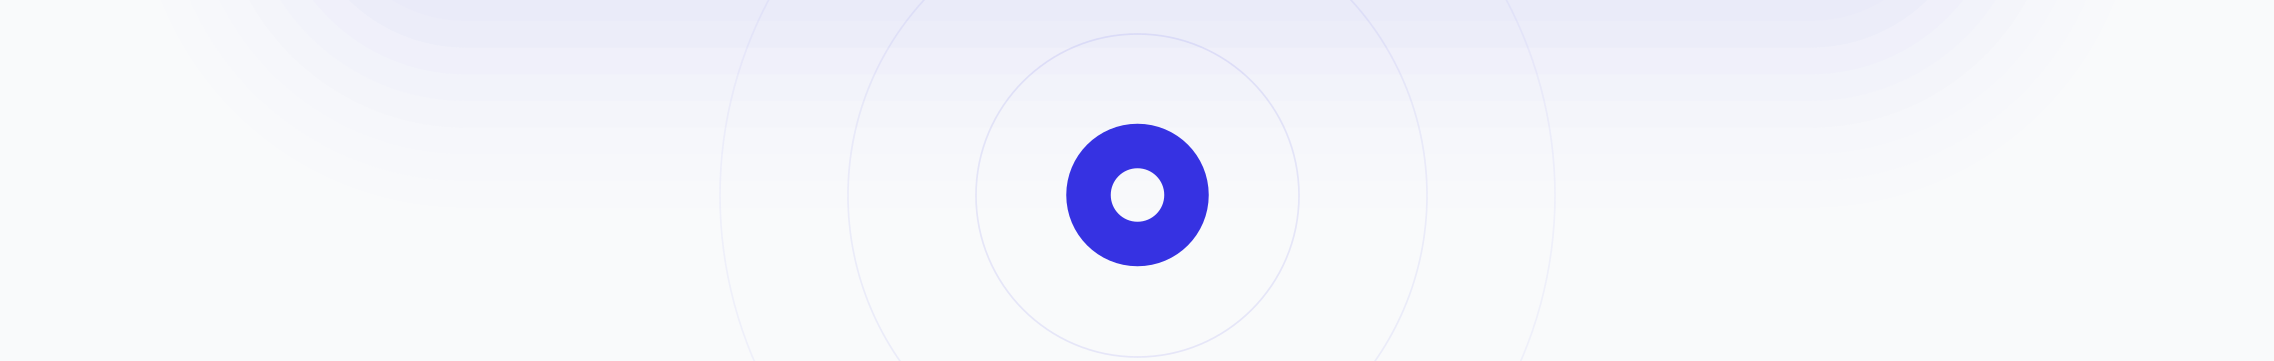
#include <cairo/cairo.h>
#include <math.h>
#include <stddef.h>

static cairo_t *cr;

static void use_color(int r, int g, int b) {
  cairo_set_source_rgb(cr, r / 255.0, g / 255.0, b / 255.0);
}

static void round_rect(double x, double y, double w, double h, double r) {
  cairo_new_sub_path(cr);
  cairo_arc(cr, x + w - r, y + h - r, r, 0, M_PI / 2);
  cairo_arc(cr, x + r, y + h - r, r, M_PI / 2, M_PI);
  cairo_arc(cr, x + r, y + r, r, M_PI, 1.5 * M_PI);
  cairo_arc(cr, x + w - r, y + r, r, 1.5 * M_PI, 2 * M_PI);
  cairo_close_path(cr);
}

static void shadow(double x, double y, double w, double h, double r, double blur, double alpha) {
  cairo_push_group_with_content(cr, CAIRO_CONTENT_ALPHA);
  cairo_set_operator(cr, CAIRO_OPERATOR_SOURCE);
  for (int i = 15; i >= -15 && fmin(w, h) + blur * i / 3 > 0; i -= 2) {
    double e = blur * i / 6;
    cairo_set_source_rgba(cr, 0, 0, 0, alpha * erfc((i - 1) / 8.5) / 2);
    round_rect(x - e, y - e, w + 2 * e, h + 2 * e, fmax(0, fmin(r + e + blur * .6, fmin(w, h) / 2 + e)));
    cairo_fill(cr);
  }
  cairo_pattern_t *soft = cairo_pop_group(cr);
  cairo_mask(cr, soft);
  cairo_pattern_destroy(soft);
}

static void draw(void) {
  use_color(249, 250, 251);
  cairo_paint(cr);
  use_color(54, 50, 226);
  shadow(285, -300, 1706, 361, 180.5, 80, 0.1);
  cairo_arc(cr, 1137.5, 195.5, 161.5, 0, 2 * M_PI);
  cairo_set_source_rgba(cr, 0.212, 0.196, 0.886, 0.1);
  cairo_set_line_width(cr, 1.7);
  cairo_stroke(cr);
  cairo_arc(cr, 1137.5, 195.5, 289.5, 0, 2 * M_PI);
  cairo_set_source_rgba(cr, 0.212, 0.196, 0.886, 0.07);
  cairo_stroke(cr);
  cairo_arc(cr, 1137.5, 195.5, 417.5, 0, 2 * M_PI);
  cairo_set_source_rgba(cr, 0.212, 0.196, 0.886, 0.05);
  cairo_stroke(cr);
  cairo_arc(cr, 1137.5, 195, 49, 0, 2 * M_PI);
  use_color(54, 50, 226);
  cairo_set_line_width(cr, 44.5);
  cairo_stroke(cr);
}

int main(void) {
  cairo_surface_t *surface = cairo_image_surface_create(CAIRO_FORMAT_RGB24, 2274, 361);
  cr = cairo_create(surface);
  cairo_font_options_t *options = cairo_font_options_create();
  cairo_font_options_set_hint_metrics(options, CAIRO_HINT_METRICS_OFF);
  cairo_font_options_set_hint_style(options, CAIRO_HINT_STYLE_NONE);
  cairo_set_font_options(cr, options);
  cairo_set_miter_limit(cr, 4);
  draw();
  cairo_surface_write_to_png(surface, "out.png");
  cairo_font_options_destroy(options);
  cairo_destroy(cr);
  cairo_surface_destroy(surface);
  return 0;
}
